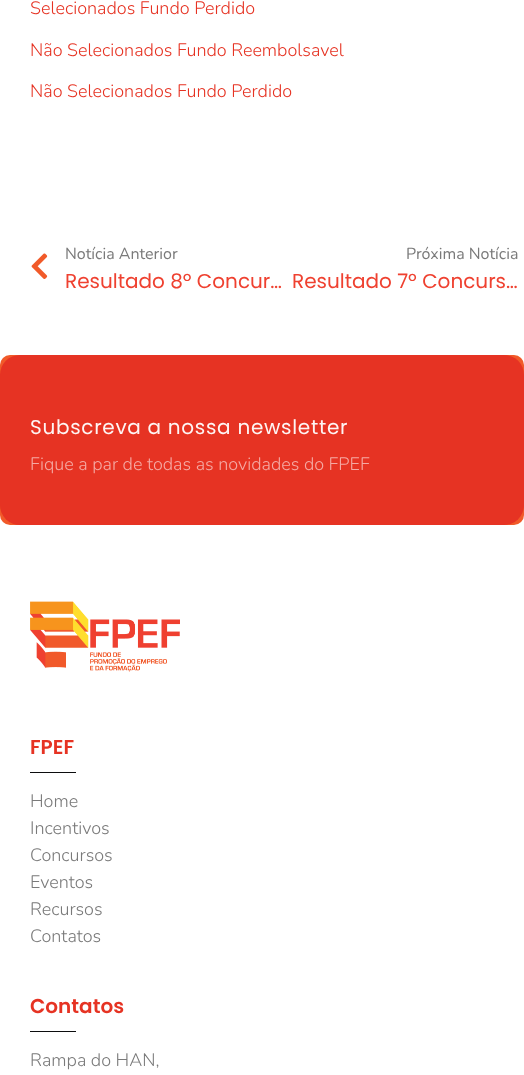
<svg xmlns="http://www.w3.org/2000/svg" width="524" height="1075">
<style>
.a{font:300 18px Nunito;fill:#e63323}
.b{font:16px Nunito;fill:#7a7a7a}
.c{font:20px Poppins;fill:#ef4130}
.d{font:20px Poppins;letter-spacing:0.7px;fill:#fef5f4}
.e{font:300 18px Nunito;fill:#f5a9a3}
.f{font:600 20px Poppins;fill:#e63323}
.g{font:300 18px Nunito;fill:#7a7a7a}
</style>
<rect width="100%" height="100%" fill="#fff"/>
<image href="1.png" x="31" y="253" width="17" height="26"/>
<rect fill="#f15a29" y="355" width="524" height="170" rx="10"/>
<rect fill="#e63323" y="355" width="524" height="170" rx="20"/>
<image href="2.png" x="30" y="601" width="150" height="71"/>
<path fill="#0c0d0e" d="M30 772h46v1H30z"/>
<path fill="#0c0d0e" d="M30 1031h46v1H30z"/>
<text class="a" x="30" y="14">Selecionados Fundo Perdido</text>
<text class="a" x="30" y="56">Não Selecionados Fundo Reembolsavel</text>
<text class="a" x="30" y="97">Não Selecionados Fundo Perdido</text>
<text class="b" x="65" y="259">Notícia Anterior</text>
<text class="c" x="65" y="288">Resultado 8º Concur…</text>
<text class="b" x="406" y="259">Próxima Notícia</text>
<text class="c" x="292" y="288">Resultado 7º Concurs…</text>
<text class="d" x="30" y="434">Subscreva a nossa newsletter</text>
<text class="e" x="30" y="470">Fique a par de todas as novidades do FPEF</text>
<text class="f" x="30" y="754">FPEF</text>
<text class="g" x="30" y="807">Home</text>
<text class="g" x="30" y="834">Incentivos</text>
<text class="g" x="30" y="861">Concursos</text>
<text class="g" x="30" y="888">Eventos</text>
<text class="g" x="30" y="915">Recursos</text>
<text class="g" x="30" y="942">Contatos</text>
<text class="f" x="30" y="1013">Contatos</text>
<text class="g" x="30" y="1066">Rampa do HAN,</text>
</svg>
